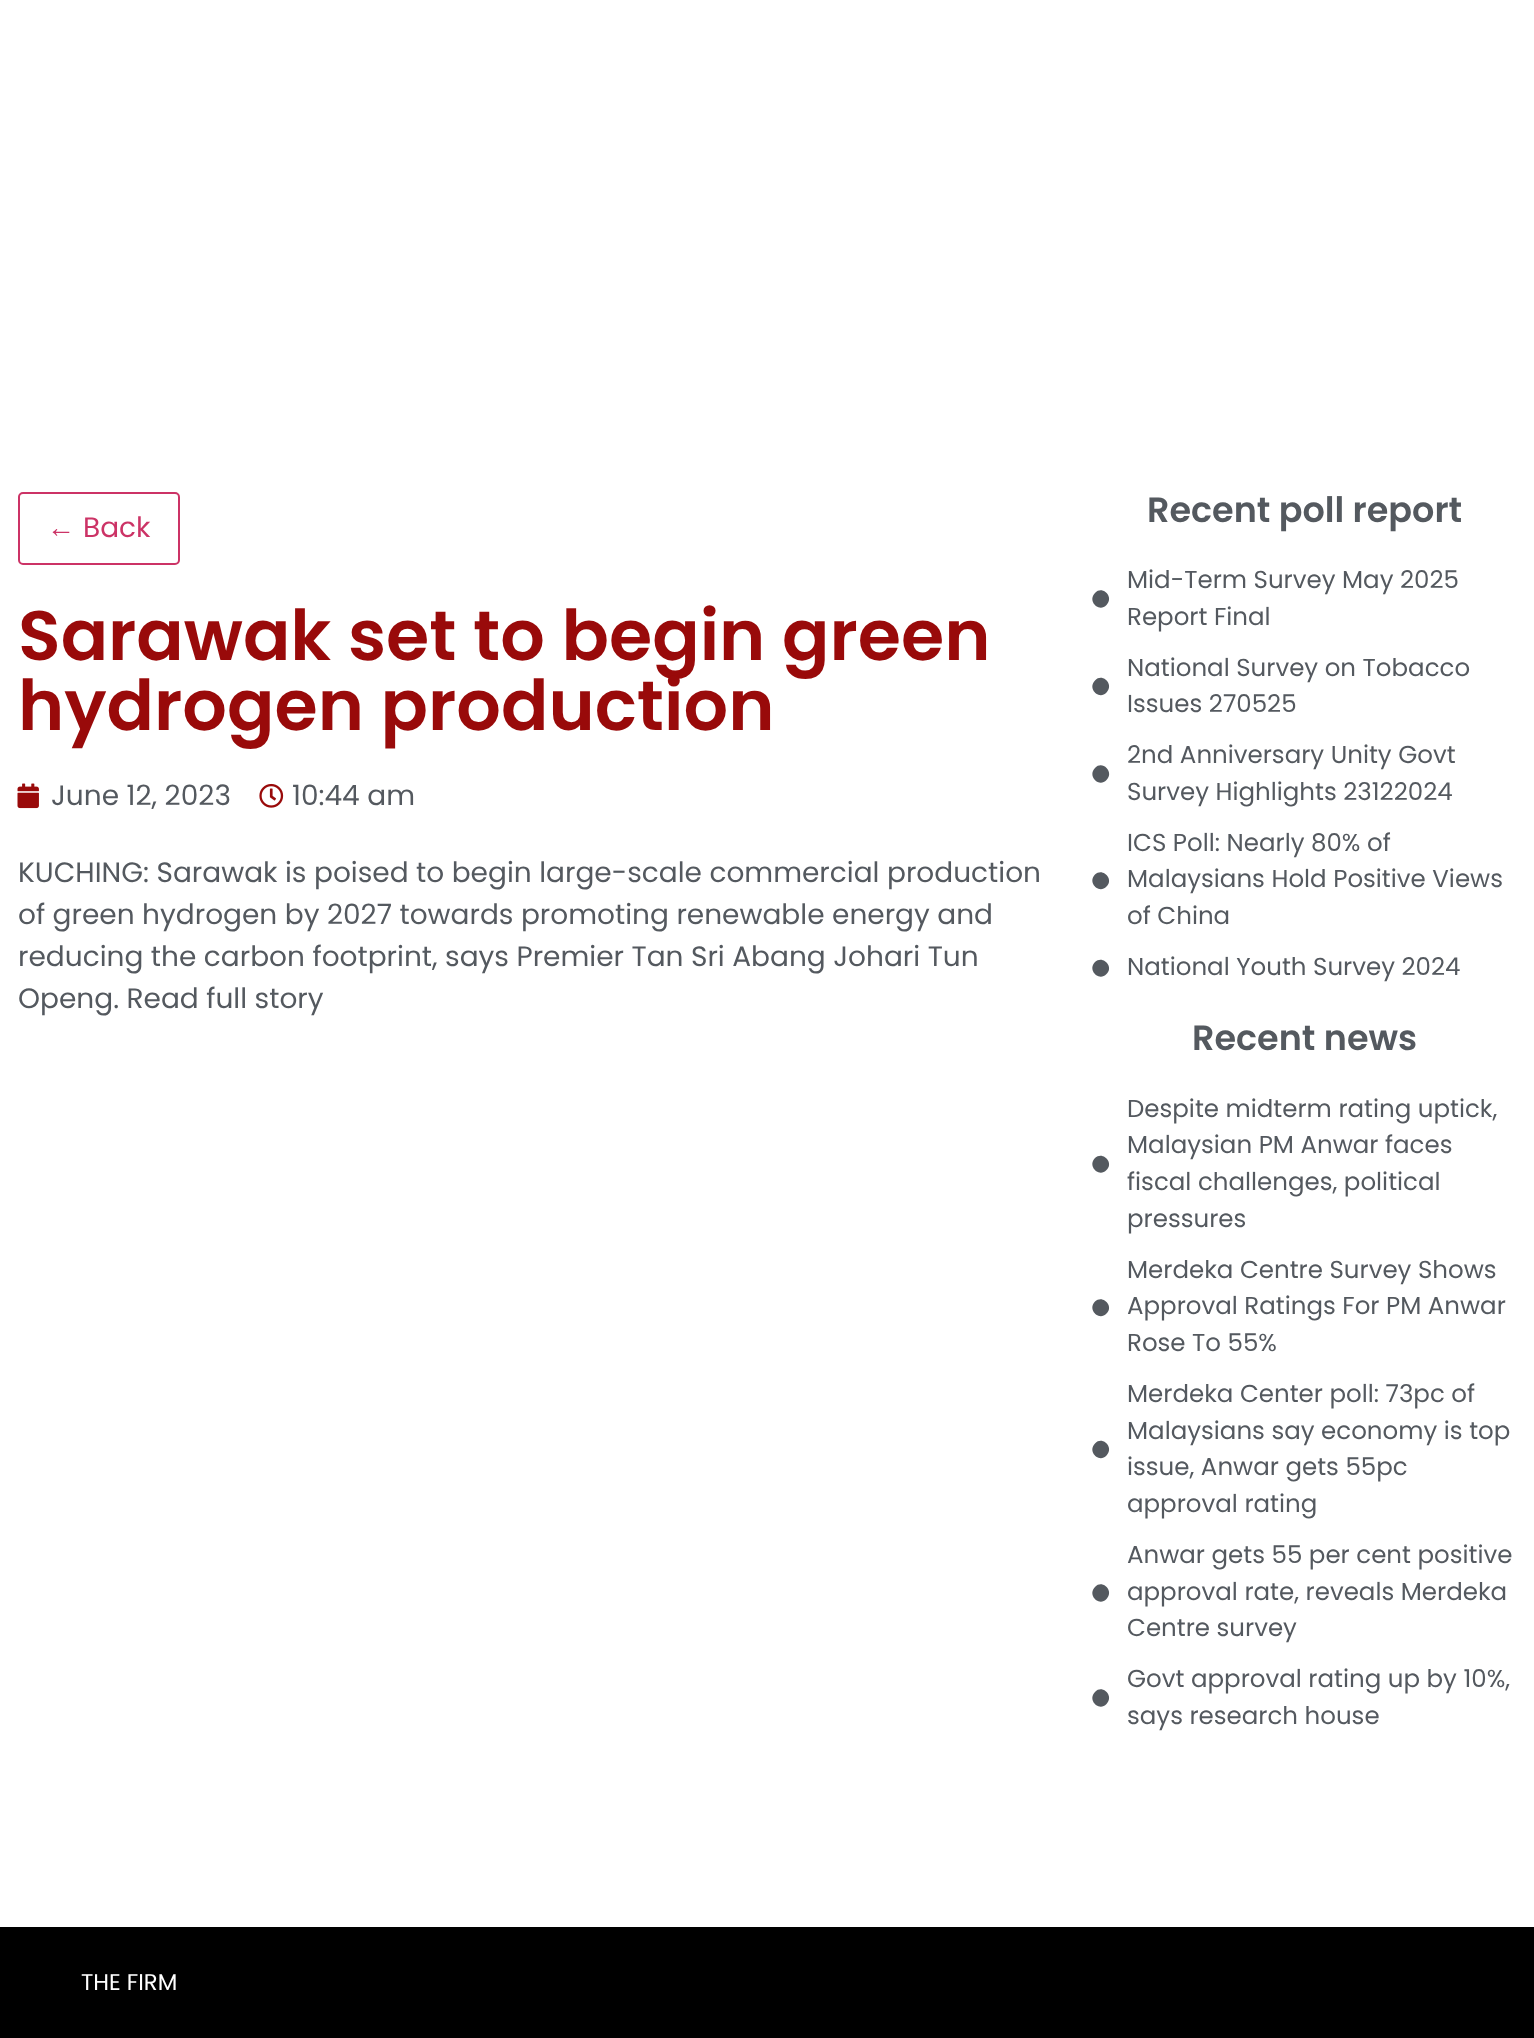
<svg xmlns="http://www.w3.org/2000/svg" width="1534" height="2038">
<style>
.a{font:28px Liberation Sans;fill:#c36}
.b{font:28px Poppins;fill:#c36}
.c{font:600 70px Poppins;fill:#990a0a}
.d{font:28px Poppins;fill:#54595f}
.e{font:600 35px Poppins;fill:#54595f}
.f{font:24.5px Poppins;fill:#54595f}
.g{font:22.75px Poppins;fill:#fff}
</style>
<rect width="100%" height="100%" fill="#fff"/>
<rect fill="none" stroke="#c36" stroke-width="2" x="19" y="493" width="160" height="71" rx="4"/>
<image href="1.png" x="17" y="783" width="22" height="26"/>
<image href="2.png" x="259" y="783" width="25" height="25"/>
<path fill="#54595f" d="M1095 593c7.5-8 19.5 4 11.5 12c-7.5 8-19.5-4-11.5-12z"/>
<path fill="#54595f" d="M1095 680.5c7.5-8 19.5 4 11.5 12c-7.5 8-19.5-4-11.5-12z"/>
<path fill="#54595f" d="M1095 768c7.5-8 19.5 4 11.5 12c-7.5 8-19.5-4-11.5-12z"/>
<path fill="#54595f" d="M1095 874.5c7.5-7.5 19.5 4.5 11.5 12c-7.5 8-19.5-4-11.5-12z"/>
<path fill="#54595f" d="M1095 962c7.5-7.5 19.5 4.5 11.5 12c-7.5 8-19.5-4-11.5-12z"/>
<path fill="#54595f" d="M1095 1158c7.5-7.5 19.5 4.5 11.5 12c-7.5 8-19.5-4-11.5-12z"/>
<path fill="#54595f" d="M1095 1301.5c7.5-7.5 19.5 4.5 11.5 12c-7.5 8-19.5-4-11.5-12z"/>
<path fill="#54595f" d="M1095 1443.5c7.5-8 19.5 4 11.5 12c-7.5 8-19.5-4-11.5-12z"/>
<path fill="#54595f" d="M1095 1587c7.5-8 19.5 4 11.5 12c-7.5 8-19.5-4-11.5-12z"/>
<path fill="#54595f" d="M1095 1692c7.5-8 19.5 4 11.5 12c-7.5 8-19.5-4-11.5-12z"/>
<path fill="#000" d="M0 1927h1534v111H0z"/>
<text class="a" x="47" y="537">←</text>
<text class="b" x="83" y="537">Back</text>
<text class="c" x="18" y="660">Sarawak set to begin green</text>
<text class="c" x="18" y="730">hydrogen production</text>
<text class="d" x="51" y="805">June 12, 2023</text>
<text class="d" x="292" y="805">10:44 am</text>
<text class="d" x="18" y="882">KUCHING: Sarawak is poised to begin large-scale commercial production</text>
<text class="d" x="18" y="924">of green hydrogen by 2027 towards promoting renewable energy and</text>
<text class="d" x="18" y="966">reducing the carbon footprint, says Premier Tan Sri Abang Johari Tun</text>
<text class="d" x="18" y="1008">Openg. Read full story</text>
<text class="e" x="1147" y="522">Recent poll report</text>
<text class="f" x="1127" y="588">Mid-Term Survey May 2025</text>
<text class="f" x="1127" y="625">Report Final</text>
<text class="f" x="1127" y="676">National Survey on Tobacco</text>
<text class="f" x="1127" y="712">Issues 270525</text>
<text class="f" x="1127" y="763">2nd Anniversary Unity Govt</text>
<text class="f" x="1127" y="800">Survey Highlights 23122024</text>
<text class="f" x="1127" y="851">ICS Poll: Nearly 80% of</text>
<text class="f" x="1127" y="887">Malaysians Hold Positive Views</text>
<text class="f" x="1127" y="924">of China</text>
<text class="f" x="1127" y="975">National Youth Survey 2024</text>
<text class="e" x="1192" y="1050">Recent news</text>
<text class="f" x="1127" y="1117">Despite midterm rating uptick,</text>
<text class="f" x="1127" y="1153">Malaysian PM Anwar faces</text>
<text class="f" x="1127" y="1190">fiscal challenges, political</text>
<text class="f" x="1127" y="1227">pressures</text>
<text class="f" x="1127" y="1278">Merdeka Centre Survey Shows</text>
<text class="f" x="1127" y="1314">Approval Ratings For PM Anwar</text>
<text class="f" x="1127" y="1351">Rose To 55%</text>
<text class="f" x="1127" y="1402">Merdeka Center poll: 73pc of</text>
<text class="f" x="1127" y="1439">Malaysians say economy is top</text>
<text class="f" x="1127" y="1475">issue, Anwar gets 55pc</text>
<text class="f" x="1127" y="1512">approval rating</text>
<text class="f" x="1127" y="1563">Anwar gets 55 per cent positive</text>
<text class="f" x="1127" y="1600">approval rate, reveals Merdeka</text>
<text class="f" x="1127" y="1636">Centre survey</text>
<text class="f" x="1127" y="1687">Govt approval rating up by 10%,</text>
<text class="f" x="1127" y="1724">says research house</text>
<text class="g" x="81" y="1990">THE FIRM</text>
</svg>
